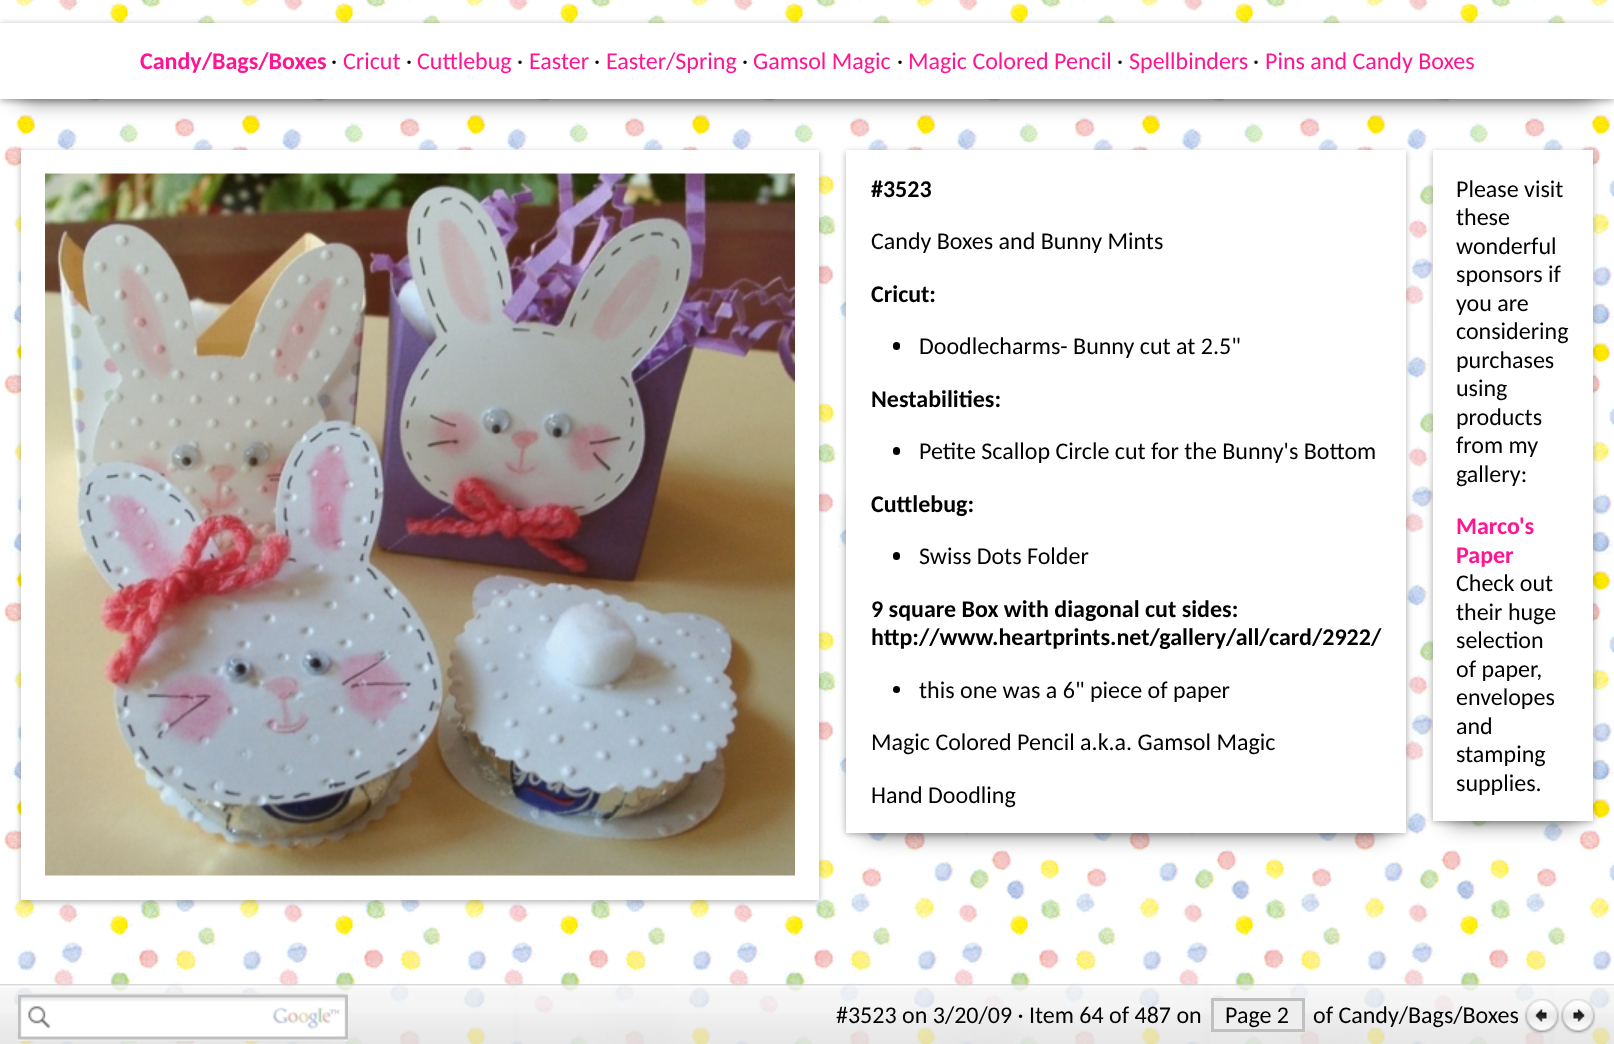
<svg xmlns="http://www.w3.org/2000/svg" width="1614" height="1044">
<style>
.a{font:bold 24px Carlito;fill:#ff1493}
.b{font:24px Carlito;fill:#000}
.c{font:24px Carlito;fill:#ff1493}
.d{font:bold 24px Carlito;fill:#000}
</style>
<rect width="100%" height="100%" fill="#fff"/>
<image href="1.png" x="3" y="0" width="1611" height="1044"/>
<path fill="#0000004d" filter="blur(3px)" d="M0 24h1614v77H0z"/>
<rect fill="#00000099" filter="blur(11px)" x="15" y="62" width="1584" height="37" rx="15"/>
<path fill="#fff" d="M0 23h1614v76H0z"/>
<path fill="#0000004d" filter="blur(3px)" d="M21 152h798v750H21z"/>
<path fill="#fff" d="M21 150h798v750H21z"/>
<image href="2.png" x="45" y="173" width="750" height="703"/>
<path fill="#0000004d" filter="blur(3px)" d="M846 152h560v682H846z"/>
<rect fill="#00000099" filter="blur(11px)" x="861" y="492" width="530" height="341" rx="15"/>
<path fill="#fff" d="M846 150h560v683H846z"/>
<rect fill="#000" x="893" y="342" width="7" height="8" rx="3.5"/>
<rect fill="#000" x="893" y="447" width="7" height="8" rx="3.5"/>
<rect fill="#000" x="893" y="552" width="7" height="8" rx="3.5"/>
<circle fill="#000" cx="896.5" cy="689.5" r="3.5"/>
<path fill="#0000004d" filter="blur(3px)" d="M1433 152h160v670H1433z"/>
<rect fill="#00000099" filter="blur(11px)" x="1448" y="486" width="130" height="335" rx="6"/>
<path fill="#fff" d="M1433 150h160v671H1433z"/>
<image href="3.png" x="0" y="984" width="1614" height="60"/>
<path fill="#fff" d="M18 993h330v48H18z"/>
<image href="4.png" x="18" y="993" width="330" height="48"/>
<path fill="#eee" stroke="#c0c0c0" stroke-width="3" d="M1212.5 999.5h91v31H1212.5z"/>
<image href="5.png" x="1524" y="998" width="36" height="36"/>
<image href="6.png" x="1560" y="998" width="36" height="36"/>
<text class="a" x="140" y="69">Candy/Bags/Boxes</text>
<text class="b" x="331" y="69">·</text>
<text class="c" x="343" y="69">Cricut</text>
<text class="b" x="406" y="69">·</text>
<text class="c" x="417" y="69">Cuttlebug</text>
<text class="b" x="517" y="69">·</text>
<text class="c" x="529" y="69">Easter</text>
<text class="b" x="594" y="69">·</text>
<text class="c" x="606" y="69">Easter/Spring</text>
<text class="b" x="742" y="69">·</text>
<text class="c" x="753" y="69">Gamsol Magic</text>
<text class="b" x="897" y="69">·</text>
<text class="c" x="908" y="69">Magic Colored Pencil</text>
<text class="b" x="1117" y="69">·</text>
<text class="c" x="1129" y="69">Spellbinders</text>
<text class="b" x="1253" y="69">·</text>
<text class="c" x="1265" y="69">Pins and Candy Boxes</text>
<text class="d" x="871" y="197">#3523</text>
<text class="b" x="871" y="249">Candy Boxes and Bunny Mints</text>
<text class="d" x="871" y="302">Cricut:</text>
<text class="b" x="919" y="354">Doodlecharms- Bunny cut at 2.5"</text>
<text class="d" x="871" y="407">Nestabilities:</text>
<text class="b" x="919" y="459">Petite Scallop Circle cut for the Bunny's Bottom</text>
<text class="d" x="871" y="512">Cuttlebug:</text>
<text class="b" x="919" y="564">Swiss Dots Folder</text>
<text class="d" x="871" y="617">9 square Box with diagonal cut sides:</text>
<text class="d" x="871" y="645">http://www.heartprints.net/gallery/all/card/2922/</text>
<text class="b" x="919" y="698">this one was a 6" piece of paper</text>
<text class="b" x="871" y="750">Magic Colored Pencil a.k.a. Gamsol Magic</text>
<text class="b" x="871" y="803">Hand Doodling</text>
<text class="b" x="1456" y="197">Please visit</text>
<text class="b" x="1456" y="225">these</text>
<text class="b" x="1456" y="254">wonderful</text>
<text class="b" x="1456" y="282">sponsors if</text>
<text class="b" x="1456" y="311">you are</text>
<text class="b" x="1456" y="339">considering</text>
<text class="b" x="1456" y="368">purchases</text>
<text class="b" x="1456" y="396">using</text>
<text class="b" x="1456" y="425">products</text>
<text class="b" x="1456" y="453">from my</text>
<text class="b" x="1456" y="482">gallery:</text>
<text class="a" x="1456" y="534">Marco's</text>
<text class="a" x="1456" y="563">Paper</text>
<text class="b" x="1456" y="591">Check out</text>
<text class="b" x="1456" y="620">their huge</text>
<text class="b" x="1456" y="648">selection</text>
<text class="b" x="1456" y="677">of paper,</text>
<text class="b" x="1456" y="705">envelopes</text>
<text class="b" x="1456" y="734">and</text>
<text class="b" x="1456" y="762">stamping</text>
<text class="b" x="1456" y="791">supplies.</text>
<text class="b" x="836" y="1023">#3523 on 3/20/09 · Item 64 of 487 on</text>
<text class="b" x="1225" y="1023">Page 2</text>
<text class="b" x="1313" y="1023">of Candy/Bags/Boxes</text>
</svg>
